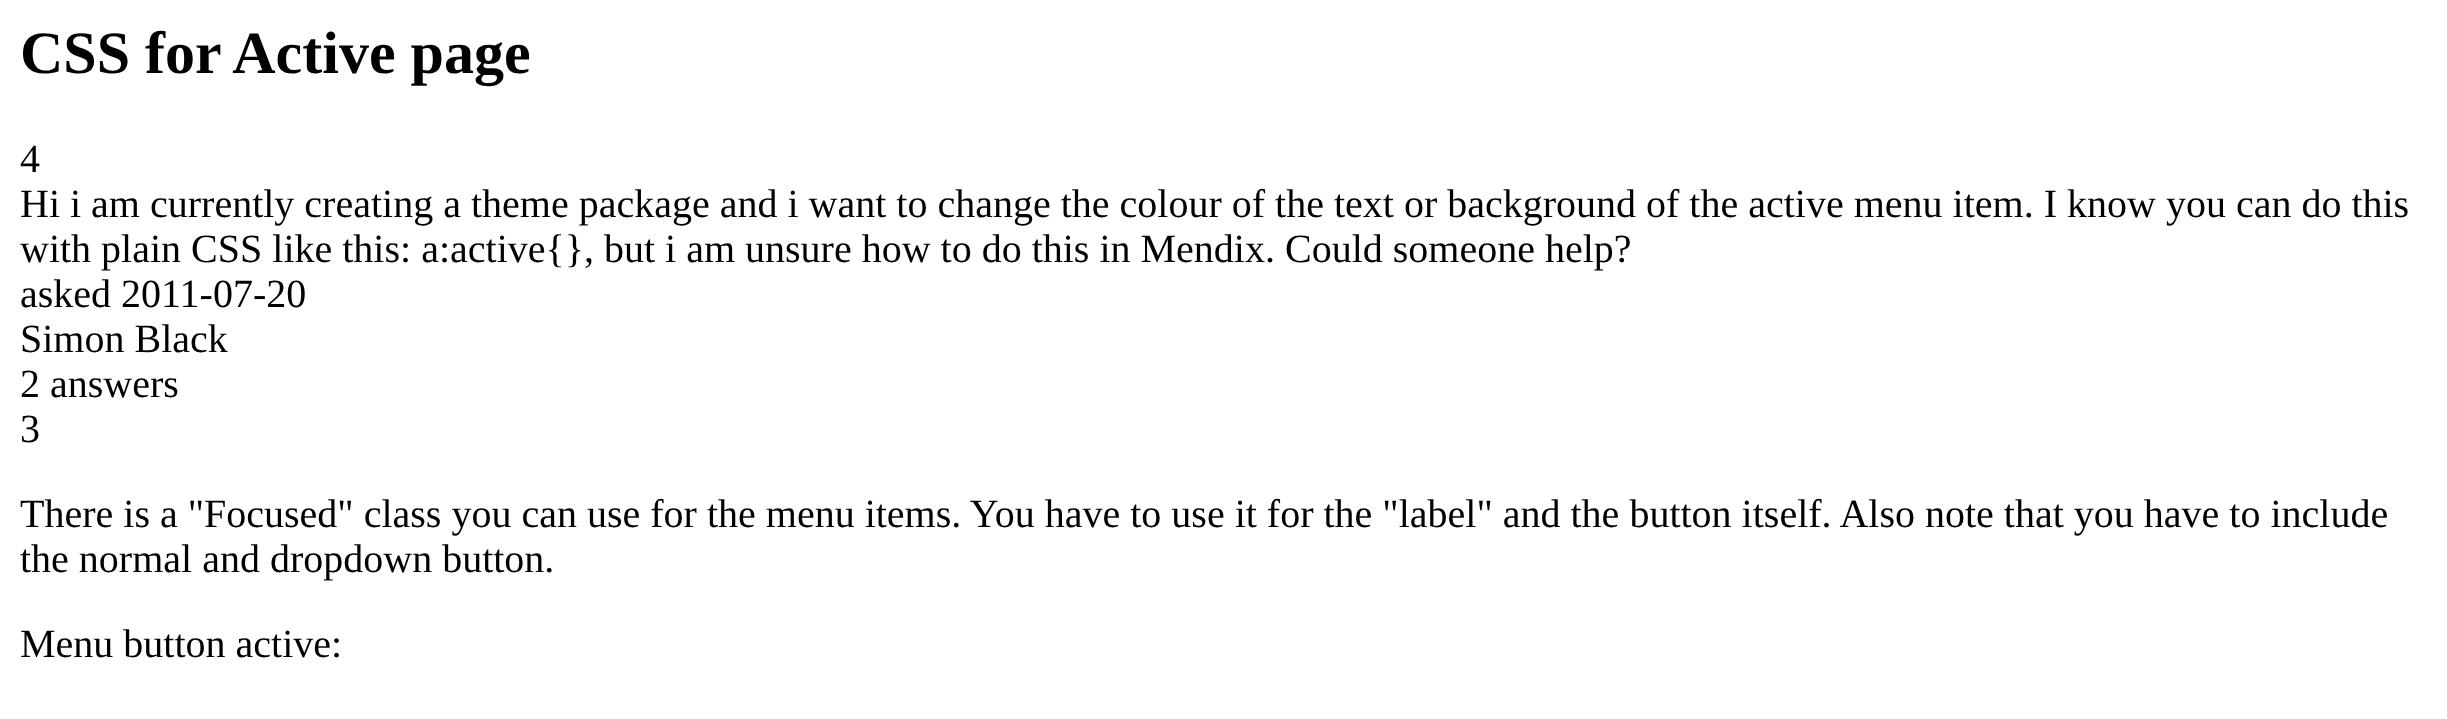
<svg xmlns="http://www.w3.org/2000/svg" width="2447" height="719">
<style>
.a{font:bold 60px Liberation Serif;fill:#000}
.b{font:40px Liberation Serif;fill:#000}
</style>
<rect width="100%" height="100%" fill="#fff"/>
<text class="a" x="20" y="73">CSS for Active page</text>
<text class="b" x="20" y="172">4</text>
<text class="b" x="20" y="217">Hi i am currently creating a theme package and i want to change the colour of the text or background of the active menu item. I know you can do this</text>
<text class="b" x="20" y="262">with plain CSS like this: a:active{}, but i am unsure how to do this in Mendix. Could someone help?</text>
<text class="b" x="20" y="307">asked 2011-07-20</text>
<text class="b" x="20" y="352">Simon Black</text>
<text class="b" x="20" y="397">2 answers</text>
<text class="b" x="20" y="442">3</text>
<text class="b" x="20" y="527">There is a "Focused" class you can use for the menu items. You have to use it for the "label" and the button itself. Also note that you have to include</text>
<text class="b" x="20" y="572">the normal and dropdown button.</text>
<text class="b" x="20" y="657">Menu button active:</text>
</svg>
